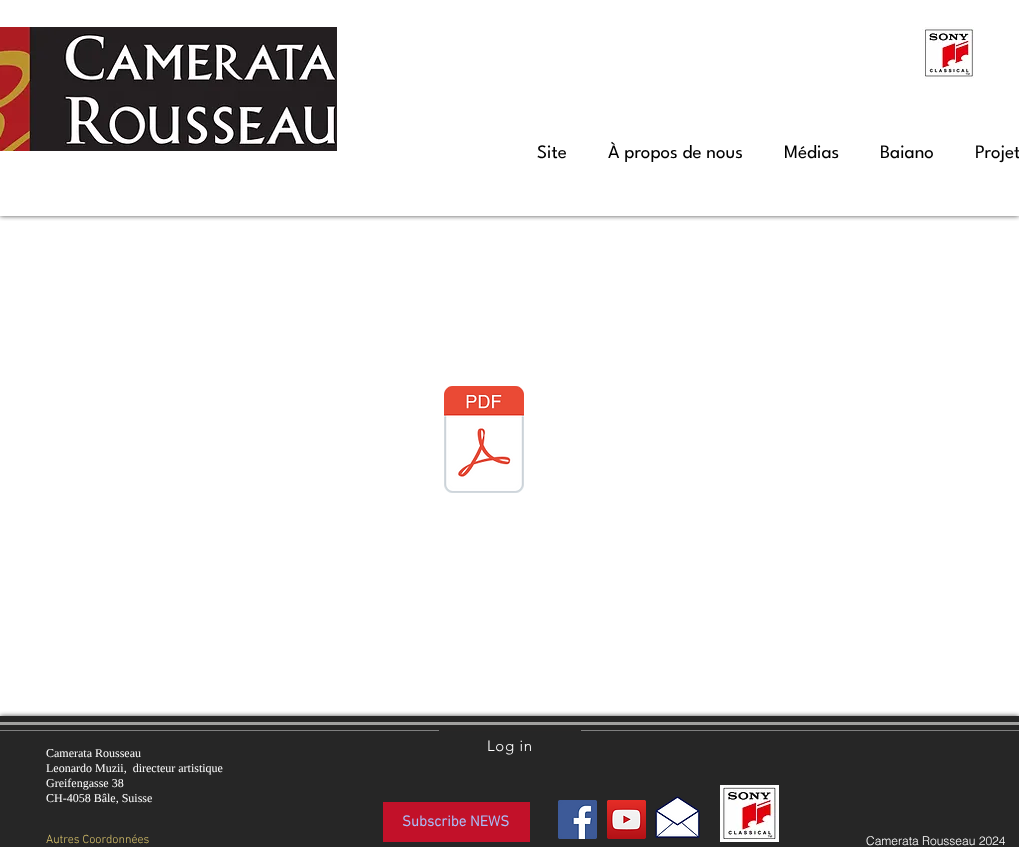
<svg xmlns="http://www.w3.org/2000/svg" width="1019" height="847">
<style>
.a{font:19px League Spartan;fill:#000}
.b{font:300 15px 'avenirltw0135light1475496';letter-spacing:0.75px;fill:#fff}
.c{font:12px Liberation Serif;fill:#fff}
.d{font:bold 15px 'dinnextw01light';fill:#aabdf6}
.e{font:300 12px 'dinnextw01light';fill:#dec76d}
.f{font:300 12px helvetica;fill:#fff}
</style>
<defs>
<clipPath id="clip1"><path d="M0 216h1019v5H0z"/></clipPath>
</defs>
<rect width="100%" height="100%" fill="#fff"/>
<g clip-path="url(#clip1)">
<path fill="#000000b3" filter="blur(2.5px)" d="M0 -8h1019v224H0z"/>
</g>
<image href="1.png" x="0" y="27" width="337" height="124"/>
<image href="2.png" x="922" y="27" width="52" height="52"/>
<image href="3.png" x="444" y="386" width="80" height="107"/>
<path fill="#000000b3" filter="blur(2.5px)" d="M0 716h1019v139H0z"/>
<path fill="#262626" d="M0 716h1019v131H0z"/>
<path fill="#a0a09f" d="M0 722h1019v3H0z"/>
<path fill="#808080" d="M0 730h1019v1H0z"/>
<path fill="#282626" d="M439 730h142v1H439z"/>
<path fill="#c21129" d="M383 802h147v40H383z"/>
<image href="4.png" x="558" y="800" width="39" height="39"/>
<image href="5.png" x="607" y="800" width="39" height="39"/>
<image href="6.png" x="655" y="796" width="45" height="42"/>
<image href="7.png" x="720" y="785" width="59" height="57"/>
<text class="a" x="537" y="158">Site</text>
<text class="a" x="608" y="158">À propos de nous</text>
<text class="a" x="784" y="158">Médias</text>
<text class="a" x="880" y="158">Baiano</text>
<text class="a" x="975" y="158">Projet</text>
<text class="b" x="487" y="751">Log in</text>
<text class="c" x="46" y="757">Camerata Rousseau</text>
<text class="c" xml:space="preserve" x="46" y="772">Leonardo Muzii,  directeur artistique</text>
<text class="c" x="46" y="787">Greifengasse 38</text>
<text class="c" x="46" y="802">CH-4058 Bâle, Suisse</text>
<text class="d" x="402" y="826">Subscribe NEWS</text>
<text class="e" x="46" y="843">Autres Coordonnées</text>
<text class="f" x="866" y="845">Camerata Rousseau 2024</text>
</svg>
